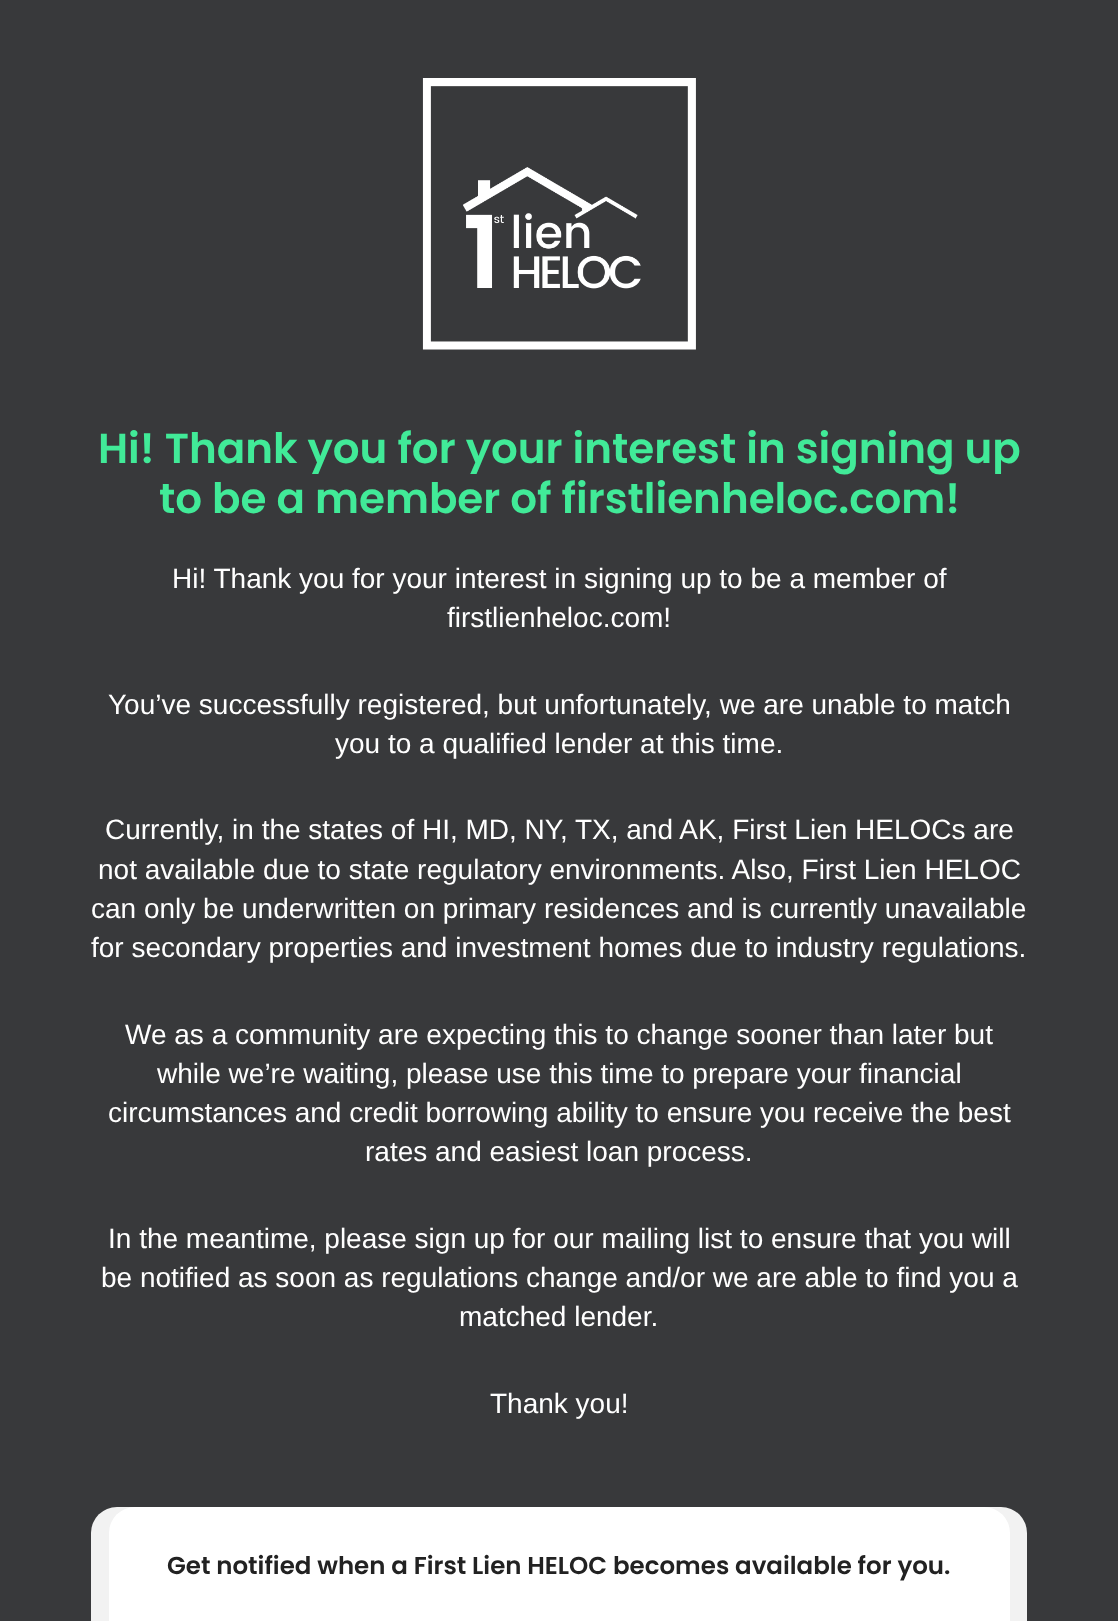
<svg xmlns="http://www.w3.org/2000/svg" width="1118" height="1621">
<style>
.a{font:600 42px Poppins;fill:#41ea98}
.b{font:28px Liberation Sans;fill:#fff}
.c{font:600 24.5px Poppins;fill:#222}
</style>
<rect width="100%" height="100%" fill="#38393b"/>
<image href="1.png" x="422" y="78" width="274" height="272"/>
<rect fill="#f2f2f2" x="91" y="1507" width="936" height="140" rx="26"/>
<rect fill="#fff" x="109" y="1507" width="901" height="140" rx="26"/>
<text class="a" x="98" y="463">Hi! Thank you for your interest in signing up</text>
<text class="a" x="159" y="513">to be a member of firstlienheloc.com!</text>
<text class="b" x="172" y="588">Hi! Thank you for your interest in signing up to be a member of</text>
<text class="b" x="447" y="627">firstlienheloc.com!</text>
<text class="b" x="108" y="714">You’ve successfully registered, but unfortunately, we are unable to match</text>
<text class="b" x="335" y="753">you to a qualified lender at this time.</text>
<text class="b" x="105" y="839">Currently, in the states of HI, MD, NY, TX, and AK, First Lien HELOCs are</text>
<text class="b" x="98" y="879">not available due to state regulatory environments. Also, First Lien HELOC</text>
<text class="b" x="91" y="918">can only be underwritten on primary residences and is currently unavailable</text>
<text class="b" x="91" y="957">for secondary properties and investment homes due to industry regulations.</text>
<text class="b" x="125" y="1044">We as a community are expecting this to change sooner than later but</text>
<text class="b" x="157" y="1083">while we’re waiting, please use this time to prepare your financial</text>
<text class="b" x="108" y="1122">circumstances and credit borrowing ability to ensure you receive the best</text>
<text class="b" x="365" y="1161">rates and easiest loan process.</text>
<text class="b" x="108" y="1248">In the meantime, please sign up for our mailing list to ensure that you will</text>
<text class="b" x="101" y="1287">be notified as soon as regulations change and/or we are able to find you a</text>
<text class="b" x="459" y="1326">matched lender.</text>
<text class="b" x="490" y="1413">Thank you!</text>
<text class="c" x="167" y="1574">Get notified when a First Lien HELOC becomes available for you.</text>
</svg>
